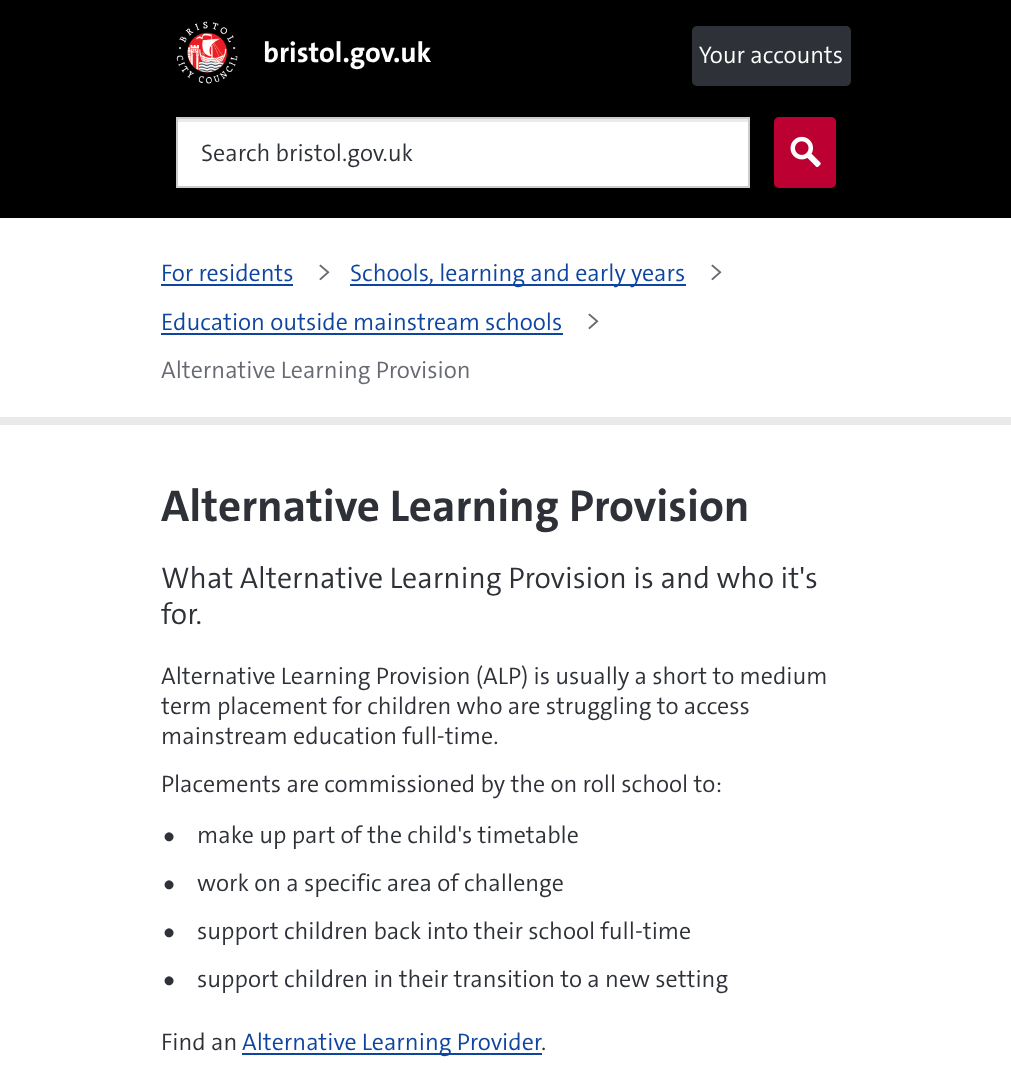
<svg xmlns="http://www.w3.org/2000/svg" width="1011" height="1089">
<style>
.a{font:bold 28.5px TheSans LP;fill:#fff}
.b{font:300 24px TheSans LP;fill:#fff}
.c{font:300 24px TheSans LP;fill:#2e3137}
.d{font:300 24px TheSans LP;fill:#0d45a0}
.e{font:300 28.5px TheSans LP;fill:#676973}
.f{font:300 24px TheSans LP;fill:#676973}
.g{font:bold 45px TheSans LP;fill:#2e3137}
.h{font:300 30px TheSans LP;fill:#2e3137}
.i{font:bold 36px 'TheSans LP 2';fill:#2e3137}
</style>
<rect width="100%" height="100%" fill="#fff"/>
<path fill="#000" d="M0 0h1011v218H0z"/>
<image href="1.png" x="176" y="21" width="62" height="63"/>
<rect fill="#2e3137" x="692" y="26" width="159" height="60" rx="5"/>
<path fill="#fff" d="M178 122h570v64H178z"/>
<path fill="#eaeaea" d="M177 119h572v3H177z"/>
<path fill="none" stroke="#ccc" stroke-width="2" d="M177 118h572v69H177z"/>
<rect fill="#bc0031" x="774" y="117" width="62" height="71" rx="5"/>
<image href="2.png" x="790" y="136" width="31" height="32"/>
<path fill="#eaeaea" d="M0 417h1011v8H0z"/>
<path fill="#0d45a0" d="M161 284h132v2H161z"/>
<path fill="#0d45a0" d="M350 284h336v2H350z"/>
<path fill="#0d45a0" d="M161 333h402v2H161z"/>
<path fill="#0d45a0" d="M242 1053h300v2H242z"/>
<text class="a" x="263" y="62">bristol.gov.uk</text>
<text class="b" x="699" y="63">Your accounts</text>
<text class="c" x="201" y="161">Search bristol.gov.uk</text>
<text class="d" x="161" y="281">For residents</text>
<text class="e" x="316" y="281">&gt;</text>
<text class="d" x="350" y="281">Schools, learning and early years</text>
<text class="e" x="708" y="281">&gt;</text>
<text class="d" x="161" y="330">Education outside mainstream schools</text>
<text class="e" x="585" y="330">&gt;</text>
<text class="f" x="161" y="378">Alternative Learning Provision</text>
<text class="g" x="161" y="521">Alternative Learning Provision</text>
<text class="h" x="161" y="588">What Alternative Learning Provision is and who it's</text>
<text class="h" x="161" y="624">for.</text>
<text class="c" x="161" y="684">Alternative Learning Provision (ALP) is usually a short to medium</text>
<text class="c" x="161" y="714">term placement for children who are struggling to access</text>
<text class="c" x="161" y="744">mainstream education full-time.</text>
<text class="c" x="161" y="792">Placements are commissioned by the on roll school to:</text>
<text class="i" x="161" y="848">•</text>
<text class="c" x="197" y="843">make up part of the child's timetable</text>
<text class="i" x="161" y="896">•</text>
<text class="c" x="197" y="891">work on a specific area of challenge</text>
<text class="i" x="161" y="944">•</text>
<text class="c" x="197" y="939">support children back into their school full-time</text>
<text class="i" x="161" y="992">•</text>
<text class="c" x="197" y="987">support children in their transition to a new setting</text>
<text class="c" x="161" y="1050">Find an</text>
<text class="d" x="242" y="1050">Alternative Learning Provider</text>
<text class="c" x="541" y="1050">.</text>
</svg>
